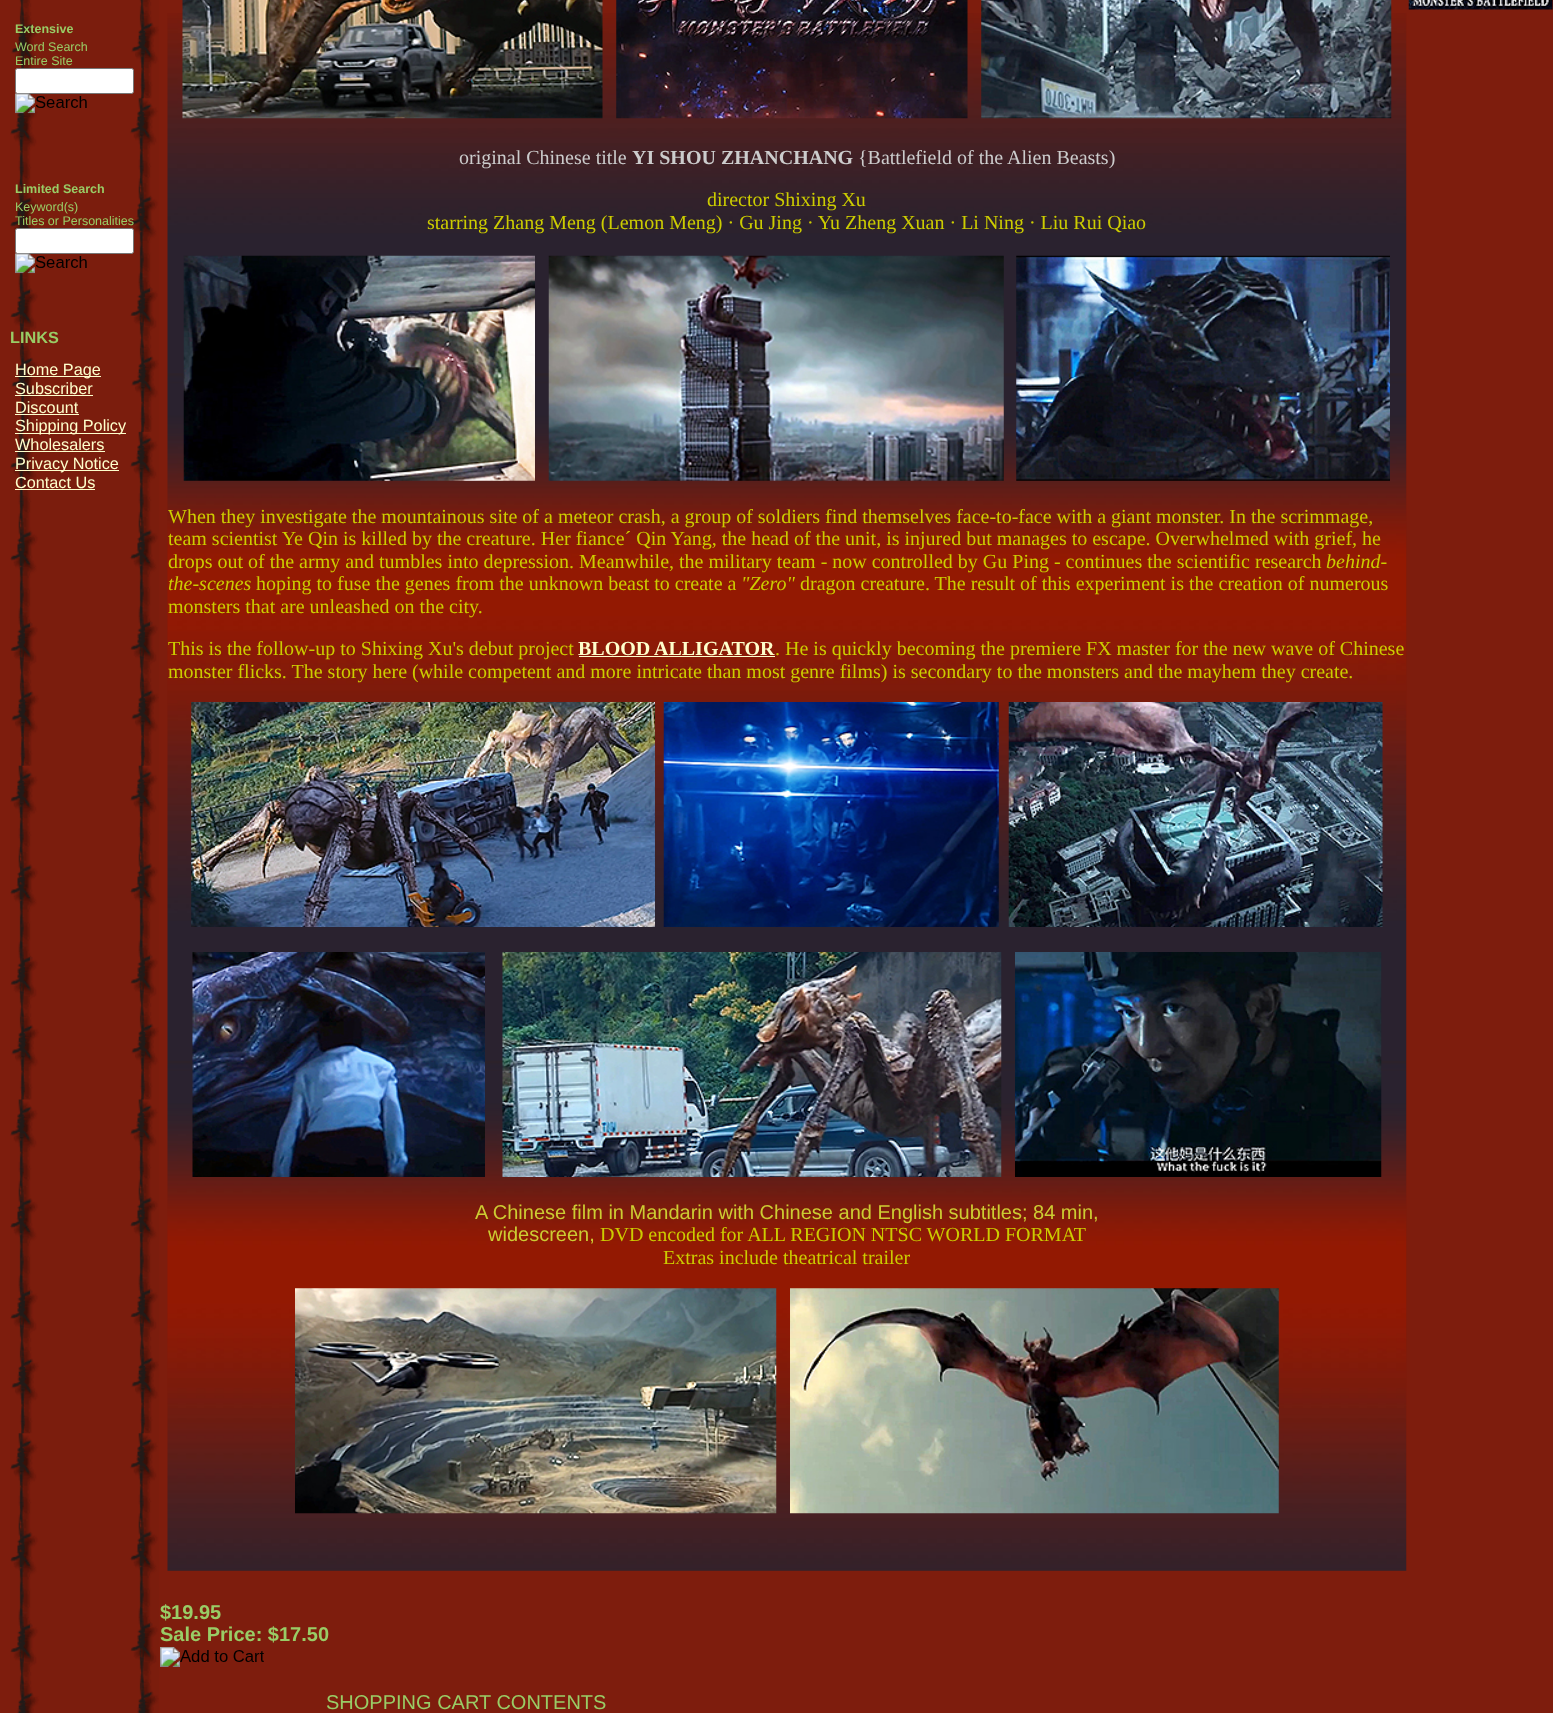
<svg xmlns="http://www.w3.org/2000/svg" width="1553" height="1713">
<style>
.a{font:bold 12.5px Liberation Sans;fill:#9c6}
.b{font:12.5px Liberation Sans;fill:#9c6}
.c{font:bold 16.25px Liberation Sans;fill:#9c6}
.d{font:16.25px Liberation Sans;fill:#ffc}
.e{font:20px Liberation Serif;fill:#ccc}
.f{font:bold 20px Liberation Serif;fill:#ccc}
.g{font:20px Liberation Serif;fill:#cc0}
.h{font:italic 20px Liberation Serif;fill:#cc0}
.i{font:bold 20px Liberation Serif;fill:#ffc}
.j{font:20px Liberation Sans;fill:#cc3}
.k{font:bold 20px Liberation Sans;fill:#9c6}
.l{font:20px Liberation Sans;fill:#9c6}
</style>
<rect width="100%" height="100%" fill="#7e1d0d"/>
<image href="1.png" x="10" y="0" width="149" height="1713"/>
<rect fill="#fff" stroke="#767676" x="15.5" y="68.5" width="118" height="25" rx="2"/>
<image href="2.png" x="15" y="93" width="72" height="21"/>
<rect fill="#fff" stroke="#767676" x="15.5" y="228.5" width="118" height="25" rx="2"/>
<image href="3.png" x="15" y="253" width="72" height="21"/>
<path fill="#ffc" d="M15 376h86v1H15z"/>
<path fill="#ffc" d="M15 395h78v1H15z"/>
<path fill="#ffc" d="M15 414h64v1H15z"/>
<path fill="#ffc" d="M15 433h111v1H15z"/>
<path fill="#ffc" d="M15 451h90v1H15z"/>
<path fill="#ffc" d="M15 470h104v1H15z"/>
<path fill="#ffc" d="M15 489h80v1H15z"/>
<image href="4.png" x="1408" y="0" width="145" height="10"/>
<image href="5.png" x="167" y="13" width="1240" height="1558"/>
<image href="6.png" x="182" y="0" width="421" height="119"/>
<image href="7.png" x="616" y="0" width="352" height="119"/>
<image href="8.png" x="981" y="0" width="411" height="119"/>
<image href="9.png" x="183" y="255" width="352" height="226"/>
<image href="10.png" x="548" y="255" width="456" height="226"/>
<image href="11.png" x="1016" y="255" width="374" height="226"/>
<path fill="#ffc" d="M579 656h196v1H579z"/>
<image href="12.png" x="191" y="702" width="464" height="225"/>
<image href="13.png" x="663" y="702" width="336" height="225"/>
<image href="14.png" x="1008" y="702" width="375" height="225"/>
<image href="15.png" x="192" y="952" width="293" height="225"/>
<image href="16.png" x="502" y="952" width="500" height="225"/>
<image href="17.png" x="1015" y="952" width="367" height="225"/>
<image href="18.png" x="295" y="1288" width="482" height="226"/>
<image href="19.png" x="790" y="1288" width="489" height="226"/>
<image href="20.png" x="160" y="1647" width="104" height="20"/>
<text class="a" x="15" y="33">Extensive</text>
<text class="b" x="15" y="51">Word Search</text>
<text class="b" x="15" y="65">Entire Site</text>
<text class="a" x="15" y="193">Limited Search</text>
<text class="b" x="15" y="211">Keyword(s)</text>
<text class="b" x="15" y="225">Titles or Personalities</text>
<text class="c" x="10" y="343">LINKS</text>
<text class="d" x="15" y="375">Home Page</text>
<text class="d" x="15" y="394">Subscriber</text>
<text class="d" x="15" y="413">Discount</text>
<text class="d" x="15" y="431">Shipping Policy</text>
<text class="d" x="15" y="450">Wholesalers</text>
<text class="d" x="15" y="469">Privacy Notice</text>
<text class="d" x="15" y="488">Contact Us</text>
<text class="e" x="459" y="164">original Chinese title</text>
<text class="f" x="632" y="164">YI SHOU ZHANCHANG</text>
<text class="e" x="858" y="164">{Battlefield of the Alien Beasts)</text>
<text class="g" x="707" y="206">director Shixing Xu</text>
<text class="g" x="427" y="229">starring Zhang Meng (Lemon Meng) · Gu Jing · Yu Zheng Xuan · Li Ning · Liu Rui Qiao</text>
<text class="g" x="168" y="523">When they investigate the mountainous site of a meteor crash, a group of soldiers find themselves face-to-face with a giant monster. In the scrimmage,</text>
<text class="g" x="168" y="545">team scientist Ye Qin is killed by the creature. Her fiance´ Qin Yang, the head of the unit, is injured but manages to escape. Overwhelmed with grief, he</text>
<text class="g" x="168" y="568">drops out of the army and tumbles into depression. Meanwhile, the military team - now controlled by Gu Ping - continues the scientific research</text>
<text class="h" x="1326" y="568">behind-</text>
<text class="h" x="168" y="590">the-scenes</text>
<text class="g" x="256" y="590">hoping to fuse the genes from the unknown beast to create a</text>
<text class="h" x="741" y="590">"Zero"</text>
<text class="g" x="800" y="590">dragon creature. The result of this experiment is the creation of numerous</text>
<text class="g" x="168" y="613">monsters that are unleashed on the city.</text>
<text class="g" x="168" y="655">This is the follow-up to Shixing Xu's debut project</text>
<text class="i" x="578" y="655">BLOOD</text>
<text class="i" x="654" y="655">ALLIGATOR</text>
<text class="g" x="775" y="655">. He is quickly becoming the premiere FX master for the new wave of Chinese</text>
<text class="g" x="168" y="678">monster flicks. The story here (while competent and more intricate than most genre films) is secondary to the monsters and the mayhem they create.</text>
<text class="j" x="475" y="1219">A Chinese film in Mandarin with Chinese and English subtitles; 84 min,</text>
<text class="j" x="488" y="1241">widescreen,</text>
<text class="g" x="600" y="1241">DVD encoded for ALL REGION NTSC WORLD FORMAT</text>
<text class="g" x="663" y="1264">Extras include theatrical trailer</text>
<text class="k" x="160" y="1619">$19.95</text>
<text class="k" x="160" y="1641">Sale Price: $17.50</text>
<text class="l" x="326" y="1709">SHOPPING CART CONTENTS</text>
</svg>
